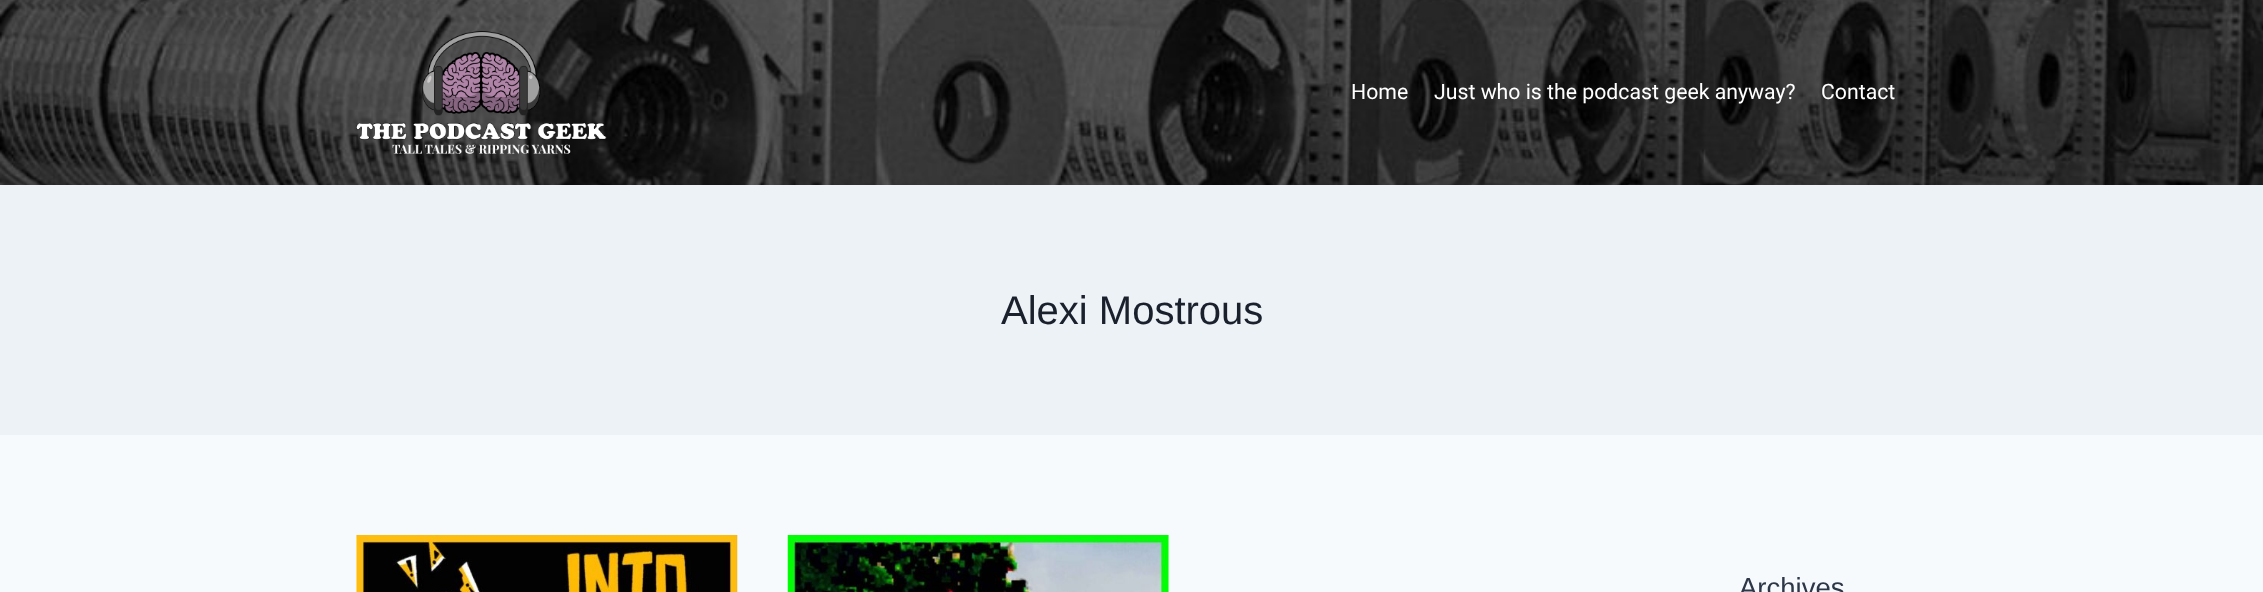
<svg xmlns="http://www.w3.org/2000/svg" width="2263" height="592">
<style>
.a{font:21.25px Roboto;fill:#fff}
.b{font:40px Liberation Sans;fill:#1a202c}
.c{font:27.5px Liberation Sans;fill:#2d3748}
</style>
<rect width="100%" height="100%" fill="#f7fafc"/>
<image href="1.png" x="0" y="0" width="2263" height="185"/>
<image href="2.png" x="356" y="31" width="251" height="123"/>
<path fill="#edf2f7" d="M0 185h2263v250H0z"/>
<rect fill="#fff" x="356" y="535" width="382" height="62" rx="5"/>
<image href="3.png" x="356" y="535" width="382" height="57"/>
<rect fill="#fff" x="788" y="535" width="381" height="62" rx="5"/>
<image href="4.png" x="787" y="535" width="382" height="57"/>
<text class="a" x="1351" y="99">Home</text>
<text class="a" x="1434" y="99">Just who is the podcast geek anyway?</text>
<text class="a" x="1821" y="99">Contact</text>
<text class="b" x="1001" y="324">Alexi Mostrous</text>
<text class="c" x="1739" y="597">Archives</text>
</svg>
